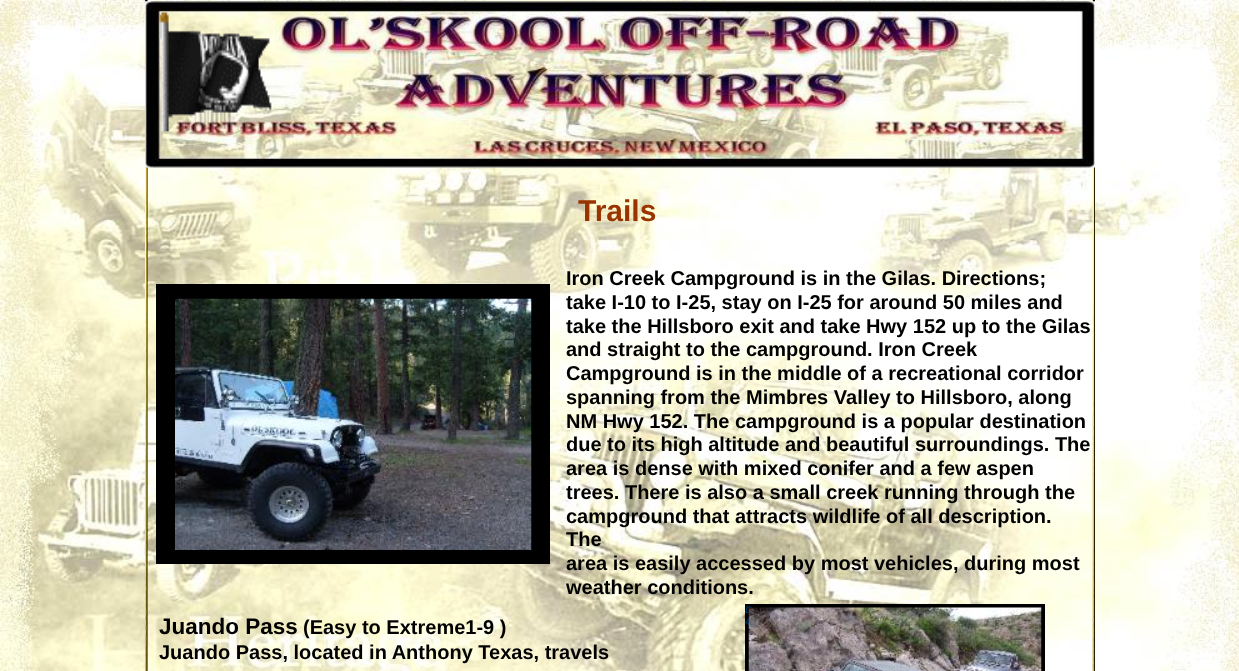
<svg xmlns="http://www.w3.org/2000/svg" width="1239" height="671">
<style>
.a{font:bold 30px Liberation Sans;fill:#930}
.b{font:bold 20px Liberation Sans;fill:#000}
.c{font:italic bold 10px Liberation Sans;fill:#036}
.d{font:bold 22.5px Liberation Sans;fill:#000}
</style>
<rect width="100%" height="100%" fill="#fff"/>
<image href="1.png" x="0" y="0" width="1239" height="671"/>
<image href="2.png" x="145" y="0" width="3" height="671"/>
<image href="3.png" x="1092" y="0" width="3" height="671"/>
<image href="4.png" x="145" y="1" width="950" height="167"/>
<image href="5.png" x="159" y="12" width="113" height="120"/>
<path fill="#000" d="M156 284h394v280H156z"/>
<image href="6.png" x="175" y="298" width="357" height="252"/>
<path fill="#000" d="M745 604h300v67H745z"/>
<text class="a" x="578" y="221">Trails</text>
<text class="b" x="566" y="285">Iron Creek Campground is in the Gilas. Directions;</text>
<text class="b" x="566" y="309">take I-10 to I-25, stay on I-25 for around 50 miles and</text>
<text class="b" x="566" y="333">take the Hillsboro exit and take Hwy 152 up to the Gilas</text>
<text class="b" x="566" y="356">and straight to the campground. Iron Creek</text>
<text class="b" x="566" y="380">Campground is in the middle of a recreational corridor</text>
<text class="b" x="566" y="404">spanning from the Mimbres Valley to Hillsboro, along</text>
<text class="b" x="566" y="428">NM Hwy 152. The campground is a popular destination</text>
<text class="b" x="566" y="451">due to its high altitude and beautiful surroundings. The</text>
<text class="b" x="566" y="475">area is dense with mixed conifer and a few aspen</text>
<text class="b" x="566" y="499">trees. There is also a small creek running through the</text>
<text class="b" x="566" y="523">campground that attracts wildlife of all description.</text>
<text class="b" x="566" y="546">The</text>
<text class="b" x="566" y="570">area is easily accessed by most vehicles, during most</text>
<text class="b" x="566" y="594">weather conditions.</text>
<text class="c" x="745" y="613">D</text>
<text class="c" x="745" y="625">4</text>
<text class="d" x="159" y="634">Juando Pass</text>
<text class="b" x="303" y="634">(Easy to Extreme1-9 )</text>
<text class="b" x="159" y="659">Juando Pass, located in Anthony Texas, travels</text>
<image href="7.png" x="748" y="607" width="294" height="64"/>
</svg>
